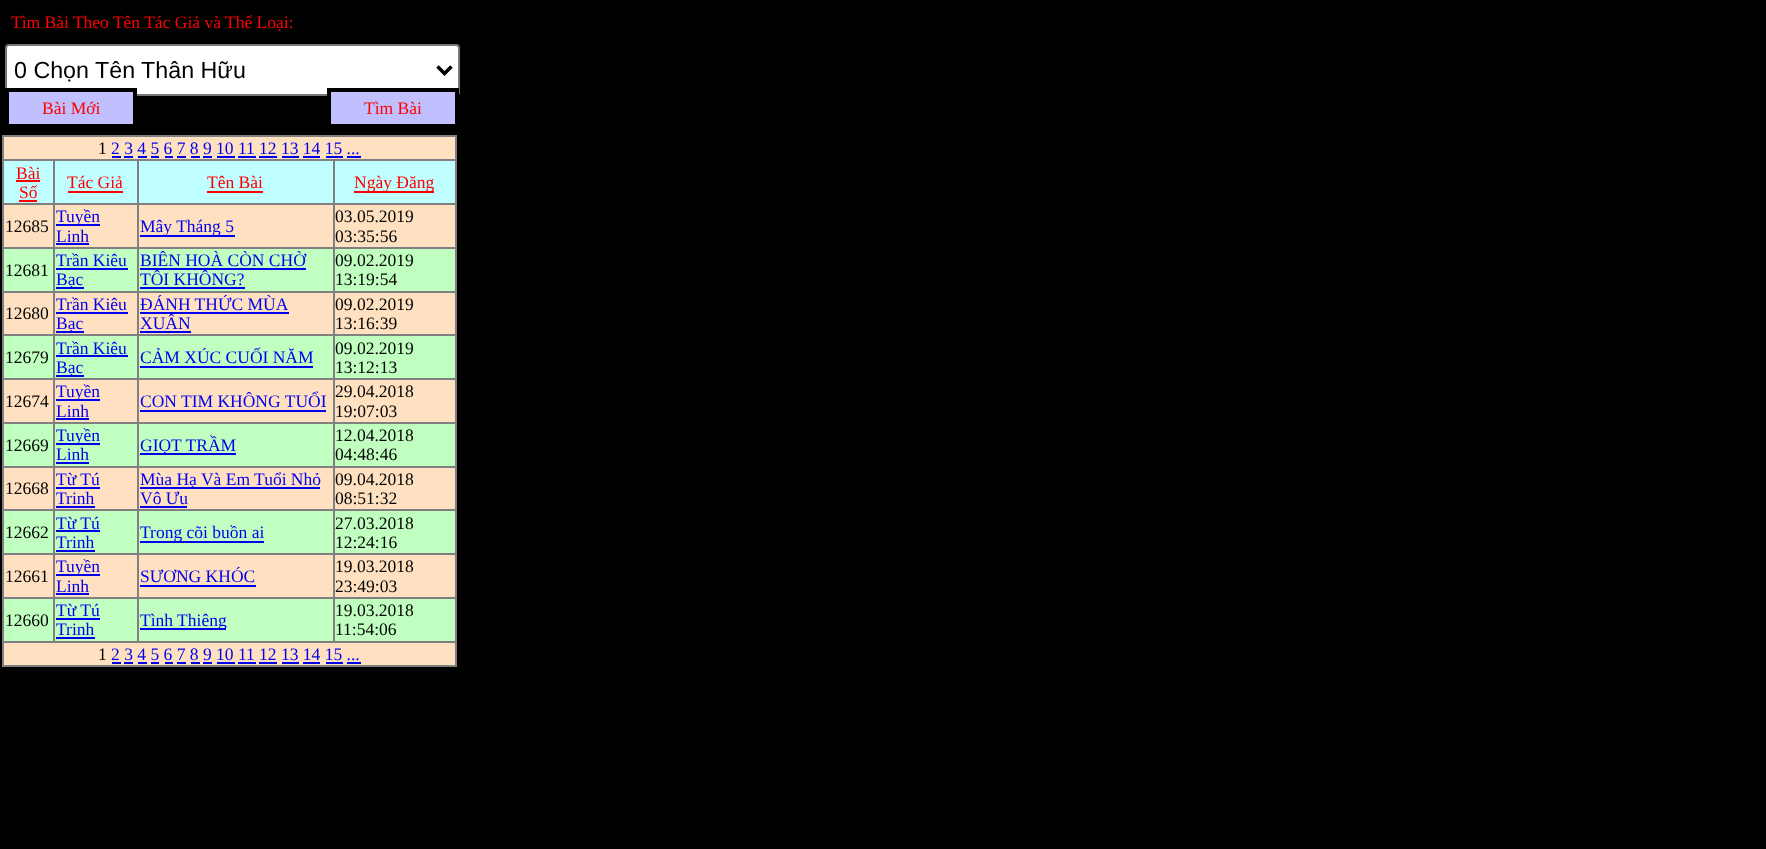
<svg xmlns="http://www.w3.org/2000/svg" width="1766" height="849">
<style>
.a{font:17.5px Liberation Serif;fill:#f00}
.b{font:23.25px Liberation Sans;fill:#000}
.c{font:17.5px Liberation Serif;fill:#000}
.d{font:17.5px Liberation Serif;fill:#00e}
</style>
<rect width="100%" height="100%" fill="#000"/>
<rect fill="#fff" stroke="#767676" stroke-width="2" x="6" y="45" width="453" height="50" rx="3"/>
<path fill="none" stroke="#000" stroke-width="3.5" d="M437.5 66.5l7 7l7-7"/>
<path fill="#c0c0ff" stroke="#000" stroke-width="4" d="M7 90h128v36H7z"/>
<path fill="#c0c0ff" stroke="#000" stroke-width="4" d="M329 90h128v36H329z"/>
<path fill="#ffe0c0" d="M4 137h451v528H4z"/>
<path fill="#808080" d="M2 135h455v2H2z"/>
<path fill="#808080" d="M455 135h2v532H455z"/>
<path fill="#808080" d="M2 665h455v2H2z"/>
<path fill="#808080" d="M2 135h2v532H2z"/>
<path fill="#00e" d="M112 156h9v2H112z"/>
<path fill="#00e" d="M124 156h9v2H124z"/>
<path fill="#00e" d="M138 156h9v2H138z"/>
<path fill="#00e" d="M151 156h8v2H151z"/>
<path fill="#00e" d="M165 156h8v2H165z"/>
<path fill="#00e" d="M177 156h9v2H177z"/>
<path fill="#00e" d="M191 156h9v2H191z"/>
<path fill="#00e" d="M203 156h9v2H203z"/>
<path fill="#00e" d="M217 156h18v2H217z"/>
<path fill="#00e" d="M238 156h18v2H238z"/>
<path fill="#00e" d="M259 156h18v2H259z"/>
<path fill="#00e" d="M282 156h17v2H282z"/>
<path fill="#00e" d="M303 156h17v2H303z"/>
<path fill="#00e" d="M326 156h17v2H326z"/>
<path fill="#00e" d="M347 156h14v2H347z"/>
<path fill="#c0ffff" d="M4 161h451v42H4z"/>
<path fill="#808080" d="M333 159h124v2H333z"/>
<path fill="#808080" d="M333 203h124v2H333z"/>
<path fill="#808080" d="M333 247h124v2H333z"/>
<path fill="#c0ffc0" d="M4 249h451v42H4z"/>
<path fill="#808080" d="M333 291h124v2H333z"/>
<path fill="#808080" d="M333 334h124v2H333z"/>
<path fill="#c0ffc0" d="M4 336h451v42H4z"/>
<path fill="#808080" d="M333 378h124v2H333z"/>
<path fill="#808080" d="M333 422h124v2H333z"/>
<path fill="#c0ffc0" d="M4 424h451v42H4z"/>
<path fill="#808080" d="M333 466h124v2H333z"/>
<path fill="#808080" d="M333 509h124v2H333z"/>
<path fill="#c0ffc0" d="M4 511h451v42H4z"/>
<path fill="#808080" d="M333 553h124v2H333z"/>
<path fill="#808080" d="M333 597h124v2H333z"/>
<path fill="#c0ffc0" d="M4 599h451v42H4z"/>
<path fill="#808080" d="M2 641h455v2H2z"/>
<path fill="#808080" d="M333 597h2v45H333z"/>
<path fill="#808080" d="M137 597h197v2H137z"/>
<path fill="#808080" d="M333 553h2v46H333z"/>
<path fill="#808080" d="M137 553h197v2H137z"/>
<path fill="#808080" d="M333 509h2v46H333z"/>
<path fill="#808080" d="M137 509h197v2H137z"/>
<path fill="#808080" d="M333 466h2v45H333z"/>
<path fill="#808080" d="M137 466h197v2H137z"/>
<path fill="#808080" d="M333 422h2v45H333z"/>
<path fill="#808080" d="M137 422h197v2H137z"/>
<path fill="#808080" d="M333 378h2v46H333z"/>
<path fill="#808080" d="M137 378h197v2H137z"/>
<path fill="#808080" d="M333 334h2v46H333z"/>
<path fill="#808080" d="M137 334h197v2H137z"/>
<path fill="#808080" d="M333 291h2v45H333z"/>
<path fill="#808080" d="M137 291h197v2H137z"/>
<path fill="#808080" d="M333 247h2v45H333z"/>
<path fill="#808080" d="M137 247h197v2H137z"/>
<path fill="#808080" d="M333 203h2v46H333z"/>
<path fill="#808080" d="M137 203h197v2H137z"/>
<path fill="#808080" d="M333 159h2v46H333z"/>
<path fill="#808080" d="M137 159h197v2H137z"/>
<path fill="#808080" d="M137 597h2v45H137z"/>
<path fill="#808080" d="M53 597h85v2H53z"/>
<path fill="#808080" d="M137 553h2v46H137z"/>
<path fill="#808080" d="M53 553h85v2H53z"/>
<path fill="#808080" d="M137 509h2v46H137z"/>
<path fill="#808080" d="M53 509h85v2H53z"/>
<path fill="#808080" d="M137 466h2v45H137z"/>
<path fill="#808080" d="M53 466h85v2H53z"/>
<path fill="#808080" d="M137 422h2v45H137z"/>
<path fill="#808080" d="M53 422h85v2H53z"/>
<path fill="#808080" d="M137 378h2v46H137z"/>
<path fill="#808080" d="M53 378h85v2H53z"/>
<path fill="#808080" d="M137 334h2v46H137z"/>
<path fill="#808080" d="M53 334h85v2H53z"/>
<path fill="#808080" d="M137 291h2v45H137z"/>
<path fill="#808080" d="M53 291h85v2H53z"/>
<path fill="#808080" d="M137 247h2v45H137z"/>
<path fill="#808080" d="M53 247h85v2H53z"/>
<path fill="#808080" d="M137 203h2v46H137z"/>
<path fill="#808080" d="M53 203h85v2H53z"/>
<path fill="#808080" d="M137 159h2v46H137z"/>
<path fill="#808080" d="M53 159h85v2H53z"/>
<path fill="#808080" d="M53 597h2v45H53z"/>
<path fill="#808080" d="M2 597h52v2H2z"/>
<path fill="#808080" d="M53 553h2v46H53z"/>
<path fill="#808080" d="M2 553h52v2H2z"/>
<path fill="#808080" d="M53 509h2v46H53z"/>
<path fill="#808080" d="M2 509h52v2H2z"/>
<path fill="#808080" d="M53 466h2v45H53z"/>
<path fill="#808080" d="M2 466h52v2H2z"/>
<path fill="#808080" d="M53 422h2v45H53z"/>
<path fill="#808080" d="M2 422h52v2H2z"/>
<path fill="#808080" d="M53 378h2v46H53z"/>
<path fill="#808080" d="M2 378h52v2H2z"/>
<path fill="#808080" d="M53 334h2v46H53z"/>
<path fill="#808080" d="M2 334h52v2H2z"/>
<path fill="#808080" d="M53 291h2v45H53z"/>
<path fill="#808080" d="M2 291h52v2H2z"/>
<path fill="#808080" d="M53 247h2v45H53z"/>
<path fill="#808080" d="M2 247h52v2H2z"/>
<path fill="#808080" d="M53 203h2v46H53z"/>
<path fill="#808080" d="M2 203h52v2H2z"/>
<path fill="#808080" d="M53 159h2v46H53z"/>
<path fill="#808080" d="M2 159h52v2H2z"/>
<path fill="#f00" d="M16 180h24v2H16z"/>
<path fill="#f00" d="M19 200h18v2H19z"/>
<path fill="#f00" d="M68 191h55v2H68z"/>
<path fill="#f00" d="M207 191h56v2H207z"/>
<path fill="#f00" d="M354 191h80v2H354z"/>
<path fill="#00e" d="M56 224h44v2H56z"/>
<path fill="#00e" d="M56 243h33v2H56z"/>
<path fill="#00e" d="M140 235h95v2H140z"/>
<path fill="#00e" d="M56 268h72v2H56z"/>
<path fill="#00e" d="M56 287h28v2H56z"/>
<path fill="#00e" d="M140 268h166v2H140z"/>
<path fill="#00e" d="M140 287h105v2H140z"/>
<path fill="#00e" d="M56 312h72v2H56z"/>
<path fill="#00e" d="M56 331h28v2H56z"/>
<path fill="#00e" d="M140 312h149v2H140z"/>
<path fill="#00e" d="M140 331h51v2H140z"/>
<path fill="#00e" d="M56 355h72v2H56z"/>
<path fill="#00e" d="M56 375h28v2H56z"/>
<path fill="#00e" d="M140 366h173v2H140z"/>
<path fill="#00e" d="M56 399h44v2H56z"/>
<path fill="#00e" d="M56 418h33v2H56z"/>
<path fill="#00e" d="M140 410h186v2H140z"/>
<path fill="#00e" d="M56 443h44v2H56z"/>
<path fill="#00e" d="M56 462h33v2H56z"/>
<path fill="#00e" d="M140 453h96v2H140z"/>
<path fill="#00e" d="M56 487h44v2H56z"/>
<path fill="#00e" d="M56 506h39v2H56z"/>
<path fill="#00e" d="M140 487h180v2H140z"/>
<path fill="#00e" d="M140 506h47v2H140z"/>
<path fill="#00e" d="M56 530h44v2H56z"/>
<path fill="#00e" d="M56 550h39v2H56z"/>
<path fill="#00e" d="M140 541h124v2H140z"/>
<path fill="#00e" d="M56 574h44v2H56z"/>
<path fill="#00e" d="M56 593h33v2H56z"/>
<path fill="#00e" d="M140 585h116v2H140z"/>
<path fill="#00e" d="M56 618h44v2H56z"/>
<path fill="#00e" d="M56 637h39v2H56z"/>
<path fill="#00e" d="M140 628h86v2H140z"/>
<path fill="#00e" d="M112 662h9v2H112z"/>
<path fill="#00e" d="M124 662h9v2H124z"/>
<path fill="#00e" d="M138 662h9v2H138z"/>
<path fill="#00e" d="M151 662h8v2H151z"/>
<path fill="#00e" d="M165 662h8v2H165z"/>
<path fill="#00e" d="M177 662h9v2H177z"/>
<path fill="#00e" d="M191 662h9v2H191z"/>
<path fill="#00e" d="M203 662h9v2H203z"/>
<path fill="#00e" d="M217 662h18v2H217z"/>
<path fill="#00e" d="M238 662h18v2H238z"/>
<path fill="#00e" d="M259 662h18v2H259z"/>
<path fill="#00e" d="M282 662h17v2H282z"/>
<path fill="#00e" d="M303 662h17v2H303z"/>
<path fill="#00e" d="M326 662h17v2H326z"/>
<path fill="#00e" d="M347 662h14v2H347z"/>
<text class="a" x="11" y="28">Tìm Bài Theo Tên Tác Giả và Thể Loại:</text>
<text class="b" x="14" y="78">0 Chọn Tên Thân Hữu</text>
<text class="a" x="42" y="114">Bài Mới</text>
<text class="a" x="364" y="114">Tìm Bài</text>
<text class="c" x="98" y="154">1</text>
<text class="d" x="111" y="154">2 3 4 5 6 7 8 9 10 11 12 13 14 15 ...</text>
<text class="a" x="16" y="179">Bài</text>
<text class="a" x="19" y="198">Số</text>
<text class="a" x="67" y="188">Tác Giả</text>
<text class="a" x="207" y="188">Tên Bài</text>
<text class="a" x="354" y="188">Ngày Ðăng</text>
<text class="c" x="5" y="232">12685</text>
<text class="d" x="56" y="222">Tuyền</text>
<text class="d" x="56" y="242">Linh</text>
<text class="d" x="140" y="232">Mây Tháng 5</text>
<text class="c" x="335" y="222">03.05.2019</text>
<text class="c" x="335" y="242">03:35:56</text>
<text class="c" x="5" y="276">12681</text>
<text class="d" x="56" y="266">Trần Kiêu</text>
<text class="d" x="56" y="285">Bạc</text>
<text class="d" x="140" y="266">BIÊN HOÀ CÒN CHỜ</text>
<text class="d" x="140" y="285">TÔI KHÔNG?</text>
<text class="c" x="335" y="266">09.02.2019</text>
<text class="c" x="335" y="285">13:19:54</text>
<text class="c" x="5" y="319">12680</text>
<text class="d" x="56" y="310">Trần Kiêu</text>
<text class="d" x="56" y="329">Bạc</text>
<text class="d" x="140" y="310">ĐÁNH THỨC MÙA</text>
<text class="d" x="140" y="329">XUÂN</text>
<text class="c" x="335" y="310">09.02.2019</text>
<text class="c" x="335" y="329">13:16:39</text>
<text class="c" x="5" y="363">12679</text>
<text class="d" x="56" y="354">Trần Kiêu</text>
<text class="d" x="56" y="373">Bạc</text>
<text class="d" x="140" y="363">CẢM XÚC CUỐI NĂM</text>
<text class="c" x="335" y="354">09.02.2019</text>
<text class="c" x="335" y="373">13:12:13</text>
<text class="c" x="5" y="407">12674</text>
<text class="d" x="56" y="397">Tuyền</text>
<text class="d" x="56" y="417">Linh</text>
<text class="d" x="140" y="407">CON TIM KHÔNG TUỔI</text>
<text class="c" x="335" y="397">29.04.2018</text>
<text class="c" x="335" y="417">19:07:03</text>
<text class="c" x="5" y="451">12669</text>
<text class="d" x="56" y="441">Tuyền</text>
<text class="d" x="56" y="460">Linh</text>
<text class="d" x="140" y="451">GIỌT TRẦM</text>
<text class="c" x="335" y="441">12.04.2018</text>
<text class="c" x="335" y="460">04:48:46</text>
<text class="c" x="5" y="494">12668</text>
<text class="d" x="56" y="485">Từ Tú</text>
<text class="d" x="56" y="504">Trinh</text>
<text class="d" x="140" y="485">Mùa Hạ Và Em Tuổi Nhỏ</text>
<text class="d" x="140" y="504">Vô Ưu</text>
<text class="c" x="335" y="485">09.04.2018</text>
<text class="c" x="335" y="504">08:51:32</text>
<text class="c" x="5" y="538">12662</text>
<text class="d" x="56" y="529">Từ Tú</text>
<text class="d" x="56" y="548">Trinh</text>
<text class="d" x="140" y="538">Trong cõi buồn ai</text>
<text class="c" x="335" y="529">27.03.2018</text>
<text class="c" x="335" y="548">12:24:16</text>
<text class="c" x="5" y="582">12661</text>
<text class="d" x="56" y="572">Tuyền</text>
<text class="d" x="56" y="592">Linh</text>
<text class="d" x="140" y="582">SƯƠNG KHÓC</text>
<text class="c" x="335" y="572">19.03.2018</text>
<text class="c" x="335" y="592">23:49:03</text>
<text class="c" x="5" y="626">12660</text>
<text class="d" x="56" y="616">Từ Tú</text>
<text class="d" x="56" y="635">Trinh</text>
<text class="d" x="140" y="626">Tình Thiêng</text>
<text class="c" x="335" y="616">19.03.2018</text>
<text class="c" x="335" y="635">11:54:06</text>
<text class="c" x="98" y="660">1</text>
<text class="d" x="111" y="660">2 3 4 5 6 7 8 9 10 11 12 13 14 15 ...</text>
</svg>
